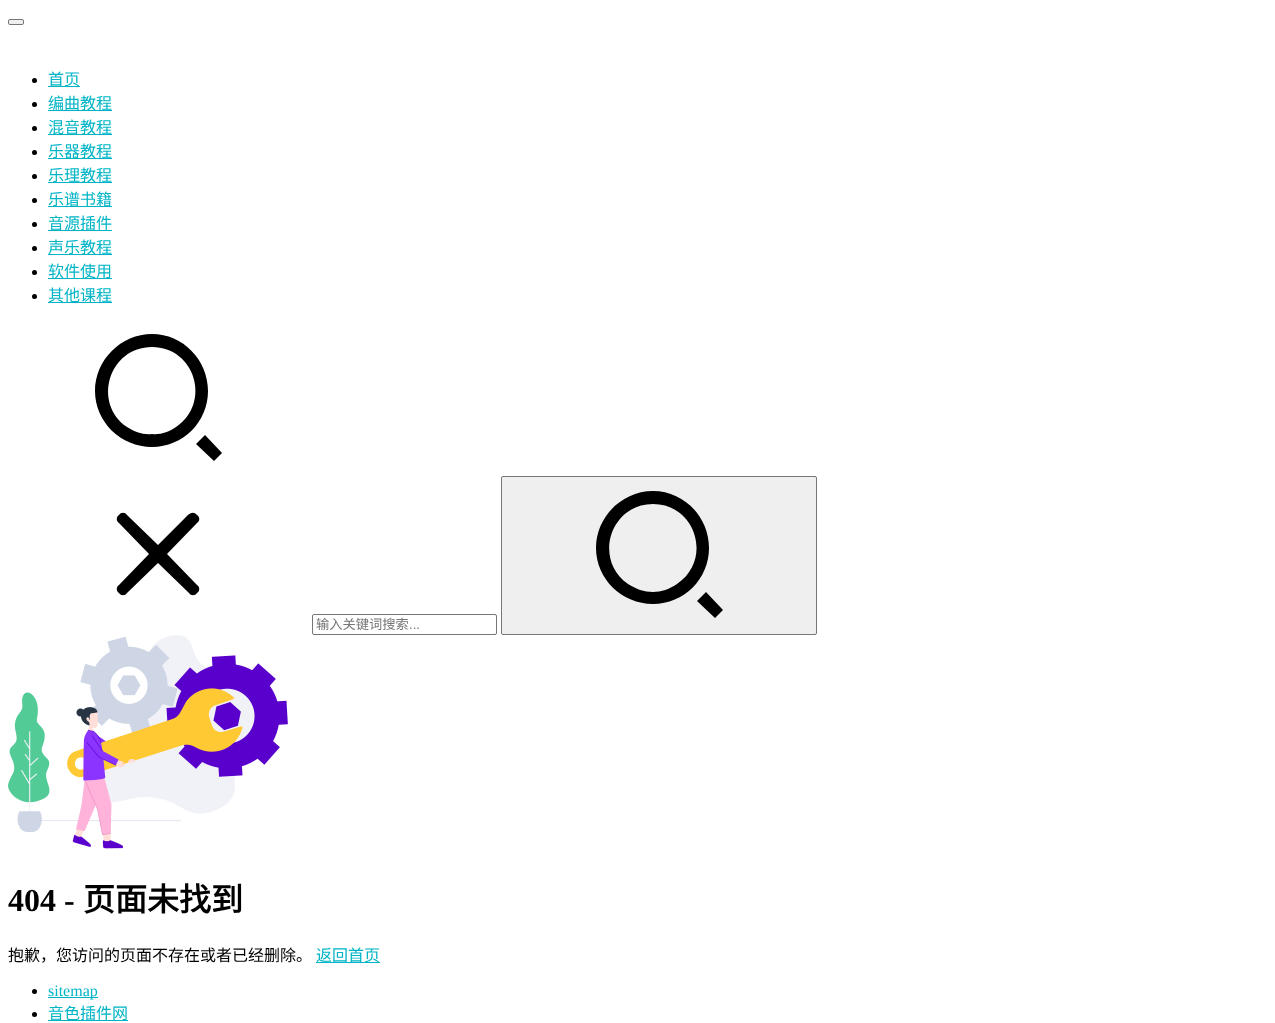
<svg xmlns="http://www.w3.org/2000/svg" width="1275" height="1023">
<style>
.a{font:16px Noto Sans CJK SC;fill:#00b4c6}
.b{font:13.25px Noto Sans CJK SC;fill:#757575}
.c{font:13.25px Liberation Sans;fill:#757575}
.d{font:bold 32px Liberation Serif;fill:#000}
.e{font:bold 32px Noto Sans CJK SC;fill:#000}
.f{font:16px Noto Sans CJK SC;fill:#000}
.g{font:16px Liberation Serif;fill:#00b4c6}
</style>
<rect width="100%" height="100%" fill="#fff"/>
<rect fill="#efefef" stroke="#767676" x="8.5" y="19.5" width="15" height="5" rx="1.5"/>
<circle fill="#000" cx="34.5" cy="80.5" r="2.5"/>
<path fill="#00b4c6" d="M48 86h32v1H48z"/>
<circle fill="#000" cx="34.5" cy="104.5" r="2.5"/>
<path fill="#00b4c6" d="M48 110h64v1H48z"/>
<circle fill="#000" cx="34.5" cy="128.5" r="2.5"/>
<path fill="#00b4c6" d="M48 134h64v1H48z"/>
<circle fill="#000" cx="34.5" cy="152.5" r="2.5"/>
<path fill="#00b4c6" d="M48 158h64v1H48z"/>
<circle fill="#000" cx="34.5" cy="176.5" r="2.5"/>
<path fill="#00b4c6" d="M48 182h64v1H48z"/>
<circle fill="#000" cx="34.5" cy="200.5" r="2.5"/>
<path fill="#00b4c6" d="M48 206h64v1H48z"/>
<circle fill="#000" cx="34.5" cy="224.5" r="2.5"/>
<path fill="#00b4c6" d="M48 230h64v1H48z"/>
<circle fill="#000" cx="34.5" cy="248.5" r="2.5"/>
<path fill="#00b4c6" d="M48 254h64v1H48z"/>
<circle fill="#000" cx="34.5" cy="272.5" r="2.5"/>
<path fill="#00b4c6" d="M48 278h64v1H48z"/>
<circle fill="#000" cx="34.5" cy="296.5" r="2.5"/>
<path fill="#00b4c6" d="M48 302h64v1H48z"/>
<path fill="#000" d="M152 334c31 0 56 26 56 57c0 31-25 56-56 56c-31 0-57-25-57-56c0-31 26-57 57-57zm0 100c8 1 17-2 24-7c36-24 19-80-24-80c-43 0-60 56-25 80c8 5 16 8 25 7zm53 1l17 18l-8 8l-18-17z"/>
<path fill="#000" d="M197 515c-5-6-10 1-14 5l-25 25l-31-30c-2-3-6-3-8 0c-3 2-3 6 0 8l30 31l-30 31c-3 2-3 6 0 8c2 3 6 3 8 0l31-30l31 30c2 3 6 3 8 0c3-2 3-6 0-8l-30-31l30-31c3-2 3-6 0-8z"/>
<rect fill="#efefef" stroke="#767676" x="501.5" y="476.5" width="315" height="158" rx="1.5"/>
<path fill="#000" d="M653 491c31 0 56 26 56 57c0 31-25 56-56 56c-31 0-57-25-57-56c0-31 26-57 57-57zm0 101c8 0 17-3 24-8c36-24 19-80-24-80c-43 0-60 56-25 80c8 5 16 8 25 8zm53 0l17 18l-8 8l-18-17z"/>
<rect fill="none" stroke="#767676" x="312.5" y="614.5" width="184" height="20" rx="1.5"/>
<image href="1.png" x="8" y="635" width="280" height="214"/>
<path fill="#00b4c6" d="M316 962h64v1H316z"/>
<circle fill="#000" cx="34.5" cy="991.5" r="2.5"/>
<path fill="#00b4c6" d="M48 997h50v1H48z"/>
<circle fill="#000" cx="34.5" cy="1014.5" r="2.5"/>
<path fill="#00b4c6" d="M48 1020h80v1H48z"/>
<text class="a" x="48" y="85">首页</text>
<text class="a" x="48" y="109">编曲教程</text>
<text class="a" x="48" y="133">混音教程</text>
<text class="a" x="48" y="157">乐器教程</text>
<text class="a" x="48" y="181">乐理教程</text>
<text class="a" x="48" y="205">乐谱书籍</text>
<text class="a" x="48" y="229">音源插件</text>
<text class="a" x="48" y="253">声乐教程</text>
<text class="a" x="48" y="277">软件使用</text>
<text class="a" x="48" y="301">其他课程</text>
<text class="b" x="316" y="629">输入关键词搜索</text>
<text class="c" x="409" y="629">...</text>
<text class="d" x="8" y="911">404 -</text>
<text class="e" x="83" y="911">页面未找到</text>
<text class="f" x="8" y="961">抱歉，您访问的页面不存在或者已经删除。</text>
<text class="a" x="316" y="961">返回首页</text>
<text class="g" x="48" y="996">sitemap</text>
<text class="a" x="48" y="1019">音色插件网</text>
</svg>
